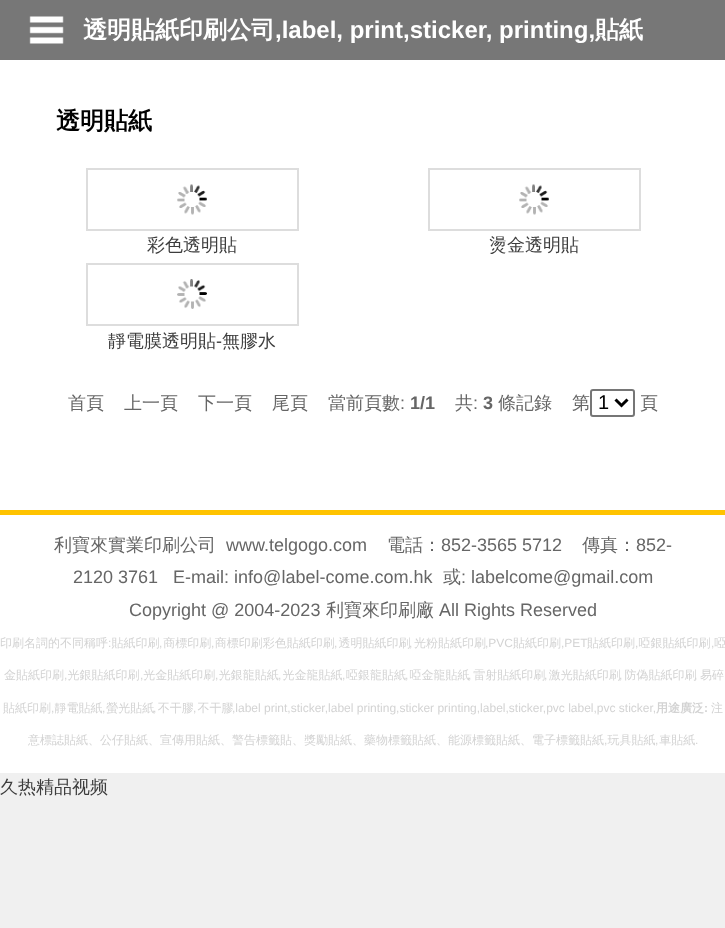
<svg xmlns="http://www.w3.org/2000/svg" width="725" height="928">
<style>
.a{font:bold 24px WenQuanYi Zen Hei;fill:#fff}
.b{font:bold 24px Liberation Sans;fill:#fff}
.c{font:bold 24px WenQuanYi Zen Hei;fill:#000}
.d{font:500 18px WenQuanYi Zen Hei;fill:#3d3d3d}
.e{font:18px Liberation Sans;fill:#3d3d3d}
.f{font:500 18px WenQuanYi Zen Hei;fill:#666}
.g{font:18px Liberation Sans;fill:#666}
.h{font:bold 18px Liberation Sans;fill:#666}
.i{font:20px Liberation Sans;fill:#000}
.j{font:500 12px WenQuanYi Zen Hei;fill:#d3d3d3}
.k{font:12px Liberation Sans;fill:#d3d3d3}
.l{font:bold 12px WenQuanYi Zen Hei;fill:#d3d3d3}
.m{font:bold 12px Liberation Sans;fill:#d3d3d3}
</style>
<rect width="100%" height="100%" fill="#f0f0f0"/>
<path fill="#fff" d="M0 60h725v713H0z"/>
<path fill="#777" d="M0 0h725v60H0z"/>
<image href="1.png" x="29" y="16" width="35" height="28"/>
<path fill="none" stroke="#ddd" stroke-width="2" d="M87 169h211v61H87z"/>
<image href="2.png" x="177" y="184" width="30" height="31"/>
<path fill="none" stroke="#ddd" stroke-width="2" d="M429 169h211v61H429z"/>
<image href="2.png" x="519" y="184" width="30" height="31"/>
<path fill="none" stroke="#ddd" stroke-width="2" d="M87 264h211v61H87z"/>
<image href="3.png" x="177" y="279" width="30" height="30"/>
<rect fill="none" stroke="#767676" stroke-width="2" x="591" y="390" width="43" height="26" rx="2"/>
<path fill="none" stroke="#000" stroke-width="3" d="M615.5 399.5l6 6l6-6"/>
<path fill="#ffc300" d="M0 510h725v5H0z"/>
<text class="a" x="83" y="38">透明貼紙印刷公司</text>
<text class="b" x="275" y="38">,label, print,sticker, printing,</text>
<text class="a" x="595" y="38">貼紙</text>
<text class="c" x="56" y="129">透明貼紙</text>
<text class="d" x="147" y="251">彩色透明貼</text>
<text class="d" x="489" y="251">燙金透明貼</text>
<text class="d" x="108" y="347">靜電膜透明貼</text>
<text class="e" x="216" y="347">-</text>
<text class="d" x="222" y="347">無膠水</text>
<text class="f" x="68" y="409">首頁</text>
<text class="f" x="124" y="409">上一頁</text>
<text class="f" x="198" y="409">下一頁</text>
<text class="f" x="272" y="409">尾頁</text>
<text class="f" x="328" y="409">當前頁數</text>
<text class="g" x="400" y="409">:</text>
<text class="h" x="410" y="409">1/1</text>
<text class="f" x="455" y="409">共</text>
<text class="g" x="473" y="409">:</text>
<text class="h" x="483" y="409">3</text>
<text class="f" x="498" y="409">條記錄</text>
<text class="f" x="572" y="409">第</text>
<text class="i" x="598" y="409">1</text>
<text class="f" x="640" y="409">頁</text>
<text class="f" x="54" y="551">利寶來實業印刷公司</text>
<text class="g" x="226" y="551">www.telgogo.com</text>
<text class="f" x="387" y="551">電話：</text>
<text class="g" x="441" y="551">852-3565 5712</text>
<text class="f" x="582" y="551">傳真：</text>
<text class="g" x="636" y="551">852-</text>
<text class="g" xml:space="preserve" x="73" y="583">2120 3761   E-mail: info@label-come.com.hk</text>
<text class="f" x="443" y="583">或</text>
<text class="g" x="461" y="583">: labelcome@gmail.com</text>
<text class="g" x="129" y="616">Copyright @ 2004-2023</text>
<text class="f" x="326" y="616">利寶來印刷廠</text>
<text class="g" x="439" y="616">All Rights Reserved</text>
<text class="j" x="0" y="647">印刷名詞的不同稱呼 貼紙印刷 商標印刷 商標印刷彩色貼紙印刷 透明貼紙印刷 光粉貼紙印刷</text>
<text class="k" x="485" y="647">,PVC</text>
<text class="j" x="513" y="647">貼紙印刷</text>
<text class="k" x="561" y="647">,PET</text>
<text class="j" x="587" y="647">貼紙印刷 啞銀貼紙印刷 啞</text>
<text class="k" x="108" y="647">:</text>
<text class="k" x="159" y="647">,</text>
<text class="k" x="211" y="647">,</text>
<text class="k" x="334" y="647">,</text>
<text class="k" x="409" y="647">,</text>
<text class="k" x="635" y="647">,</text>
<text class="k" x="711" y="647">,</text>
<text class="j" x="4" y="679">金貼紙印刷 光銀貼紙印刷 光金貼紙印刷 光銀龍貼紙 光金龍貼紙 啞銀龍貼紙 啞金龍貼紙 雷射貼紙印刷 激光貼紙印刷 防偽貼紙印刷 易碎</text>
<text class="k" x="64" y="679">,</text>
<text class="k" x="140" y="679">,</text>
<text class="k" x="215" y="679">,</text>
<text class="k" x="278" y="679">,</text>
<text class="k" x="342" y="679">,</text>
<text class="k" x="405" y="679">,</text>
<text class="k" x="468" y="679">,</text>
<text class="k" x="544" y="679">,</text>
<text class="k" x="619" y="679">,</text>
<text class="k" x="694" y="679">,</text>
<text class="j" x="3" y="712">貼紙印刷 靜電貼紙 螢光貼紙 不干膠 不干膠</text>
<text class="k" x="232" y="712">,label print,sticker,label printing,sticker printing,label,sticker,pvc label,pvc sticker,</text>
<text class="l" x="656" y="712">用途廣泛</text>
<text class="m" x="704" y="712">:</text>
<text class="j" x="711" y="712">注</text>
<text class="k" x="51" y="712">,</text>
<text class="k" x="102" y="712">,</text>
<text class="k" x="153" y="712">,</text>
<text class="k" x="193" y="712">,</text>
<text class="j" x="28" y="744">意標誌貼紙、公仔貼紙、宣傳用貼紙、警告標籤貼、獎勵貼紙、藥物標籤貼紙、能源標籤貼紙、電子標籤貼紙 玩具貼紙 車貼紙</text>
<text class="k" x="604" y="744">,</text>
<text class="k" x="655" y="744">,</text>
<text class="k" x="695" y="744">.</text>
<text class="d" x="0" y="793">久热精品视频</text>
</svg>
